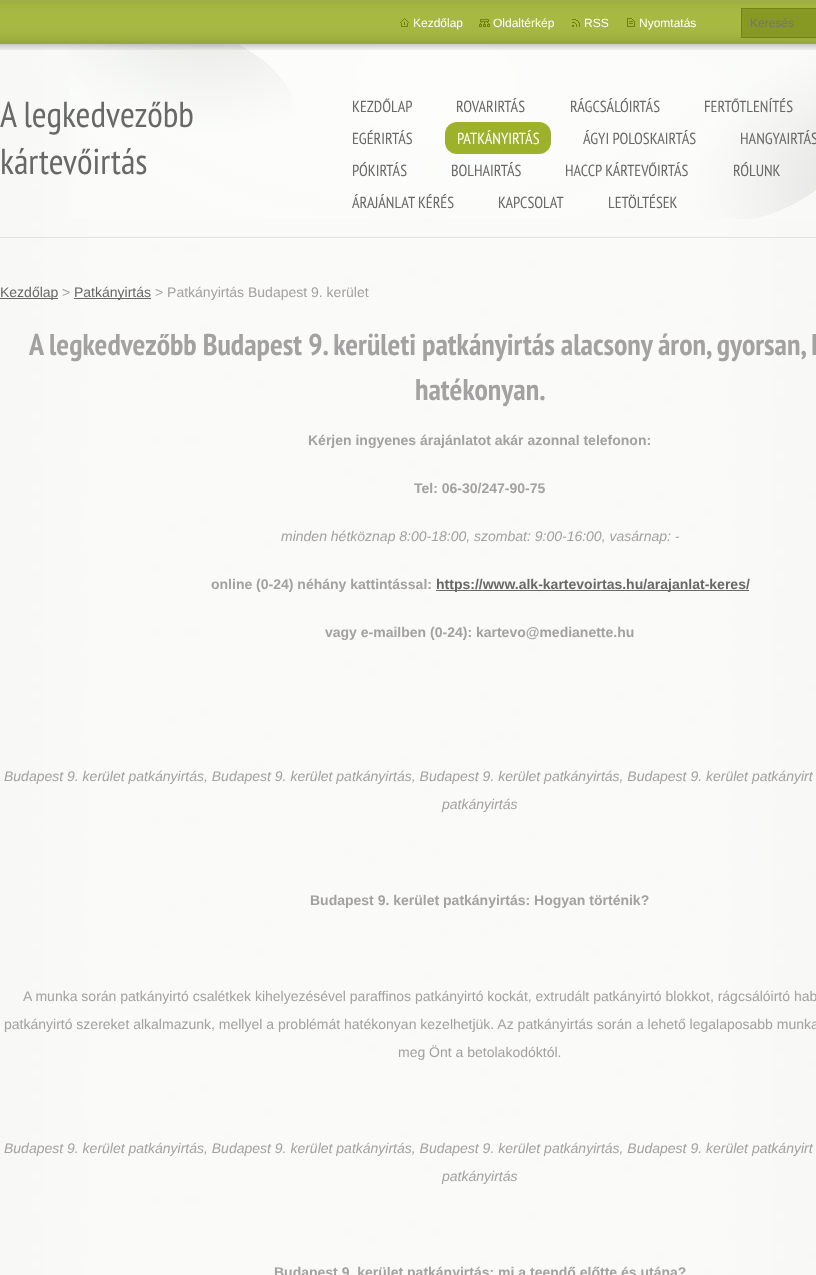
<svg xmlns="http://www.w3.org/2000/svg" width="816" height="1275">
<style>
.a{font:12px Liberation Sans;fill:#fff}
.b{font:12px Liberation Sans;fill:#757575}
.c{font:36px PT Sans Narrow;fill:#686868}
.d{font:16px PT Sans Narrow;fill:#686868}
.e{font:16px PT Sans Narrow;fill:#fff}
.f{font:14px Liberation Sans;fill:#686868}
.g{font:14px Liberation Sans;fill:#a3a1a1}
.h{font:bold 30px PT Sans Narrow;fill:#a3a1a1}
.i{font:bold 14px Liberation Sans;fill:#a3a1a1}
.j{font:italic 14px Liberation Sans;fill:#a3a1a1}
.k{font:bold 14px Liberation Sans;fill:#686868}
</style>
<rect width="100%" height="100%" fill="#fff"/>
<image href="1.png" x="0" y="44" width="816" height="1231"/>
<image href="2.png" x="69" y="44" width="747" height="175"/>
<path fill="#e2e2e0" d="M0 237h816v1H0z"/>
<image href="3.png" x="0" y="0" width="816" height="50"/>
<image href="4.png" x="400" y="18" width="9" height="9"/>
<image href="5.png" x="479" y="19" width="11" height="8"/>
<image href="6.png" x="572" y="19" width="8" height="8"/>
<image href="7.png" x="627" y="18" width="8" height="9"/>
<image href="8.png" x="741" y="8" width="75" height="30"/>
<rect fill="#9db12b" x="445" y="122" width="106" height="32" rx="12"/>
<path fill="#686868" d="M0 298h58v1H0z"/>
<path fill="#686868" d="M74 298h77v1H74z"/>
<path fill="#686868" d="M436 590h313v1H436z"/>
<text class="a" x="413" y="27">Kezdőlap</text>
<text class="a" x="493" y="27">Oldaltérkép</text>
<text class="a" x="584" y="27">RSS</text>
<text class="a" x="639" y="27">Nyomtatás</text>
<text class="b" x="750" y="27">Keresés</text>
<text class="c" x="0" y="127">A legkedvezőbb</text>
<text class="c" x="0" y="174">kártevőirtás</text>
<text class="d" x="352" y="112">KEZDŐLAP</text>
<text class="d" x="456" y="112">ROVARIRTÁS</text>
<text class="d" x="570" y="112">RÁGCSÁLÓIRTÁS</text>
<text class="d" x="704" y="112">FERTŐTLENÍTÉS</text>
<text class="d" x="352" y="144">EGÉRIRTÁS</text>
<text class="e" x="457" y="144">PATKÁNYIRTÁS</text>
<text class="d" x="583" y="144">ÁGYI POLOSKAIRTÁS</text>
<text class="d" x="740" y="144">HANGYAIRTÁS</text>
<text class="d" x="352" y="176">PÓKIRTÁS</text>
<text class="d" x="451" y="176">BOLHAIRTÁS</text>
<text class="d" x="565" y="176">HACCP KÁRTEVŐIRTÁS</text>
<text class="d" x="733" y="176">RÓLUNK</text>
<text class="d" x="352" y="208">ÁRAJÁNLAT KÉRÉS</text>
<text class="d" x="498" y="208">KAPCSOLAT</text>
<text class="d" x="608" y="208">LETÖLTÉSEK</text>
<text class="f" x="0" y="297">Kezdőlap</text>
<text class="g" x="62" y="297">&gt;</text>
<text class="f" x="74" y="297">Patkányirtás</text>
<text class="g" x="155" y="297">&gt; Patkányirtás Budapest 9. kerület</text>
<text class="h" x="29" y="355">A legkedvezőbb Budapest 9. kerületi patkányirtás alacsony áron, gyorsan, k</text>
<text class="h" x="415" y="400">hatékonyan.</text>
<text class="i" x="308" y="445">Kérjen ingyenes árajánlatot akár azonnal telefonon:</text>
<text class="i" x="414" y="493">Tel: 06-30/247-90-75</text>
<text class="j" x="281" y="541">minden hétköznap 8:00-18:00, szombat: 9:00-16:00, vasárnap: -</text>
<text class="i" x="211" y="589">online (0-24) néhány kattintással:</text>
<text class="k" x="436" y="589">https://www.alk-kartevoirtas.hu/arajanlat-keres/</text>
<text class="i" x="325" y="637">vagy e-mailben (0-24): kartevo@medianette.hu</text>
<text class="j" x="4" y="781">Budapest 9. kerület patkányirtás, Budapest 9. kerület patkányirtás, Budapest 9. kerület patkányirtás, Budapest 9. kerület patkányirt</text>
<text class="j" x="442" y="809">patkányirtás</text>
<text class="i" x="310" y="905">Budapest 9. kerület patkányirtás: Hogyan történik?</text>
<text class="g" x="23" y="1001">A munka során patkányirtó csalétkek kihelyezésével paraffinos patkányirtó kockát, extrudált patkányirtó blokkot, rágcsálóirtó hab</text>
<text class="g" x="4" y="1029">patkányirtó szereket alkalmazunk, mellyel a problémát hatékonyan kezelhetjük. Az patkányirtás során a lehető legalaposabb munka</text>
<text class="g" x="398" y="1057">meg Önt a betolakodóktól.</text>
<text class="j" x="4" y="1153">Budapest 9. kerület patkányirtás, Budapest 9. kerület patkányirtás, Budapest 9. kerület patkányirtás, Budapest 9. kerület patkányirt</text>
<text class="j" x="442" y="1181">patkányirtás</text>
<text class="i" x="274" y="1277">Budapest 9. kerület patkányirtás: mi a teendő előtte és utána?</text>
</svg>
